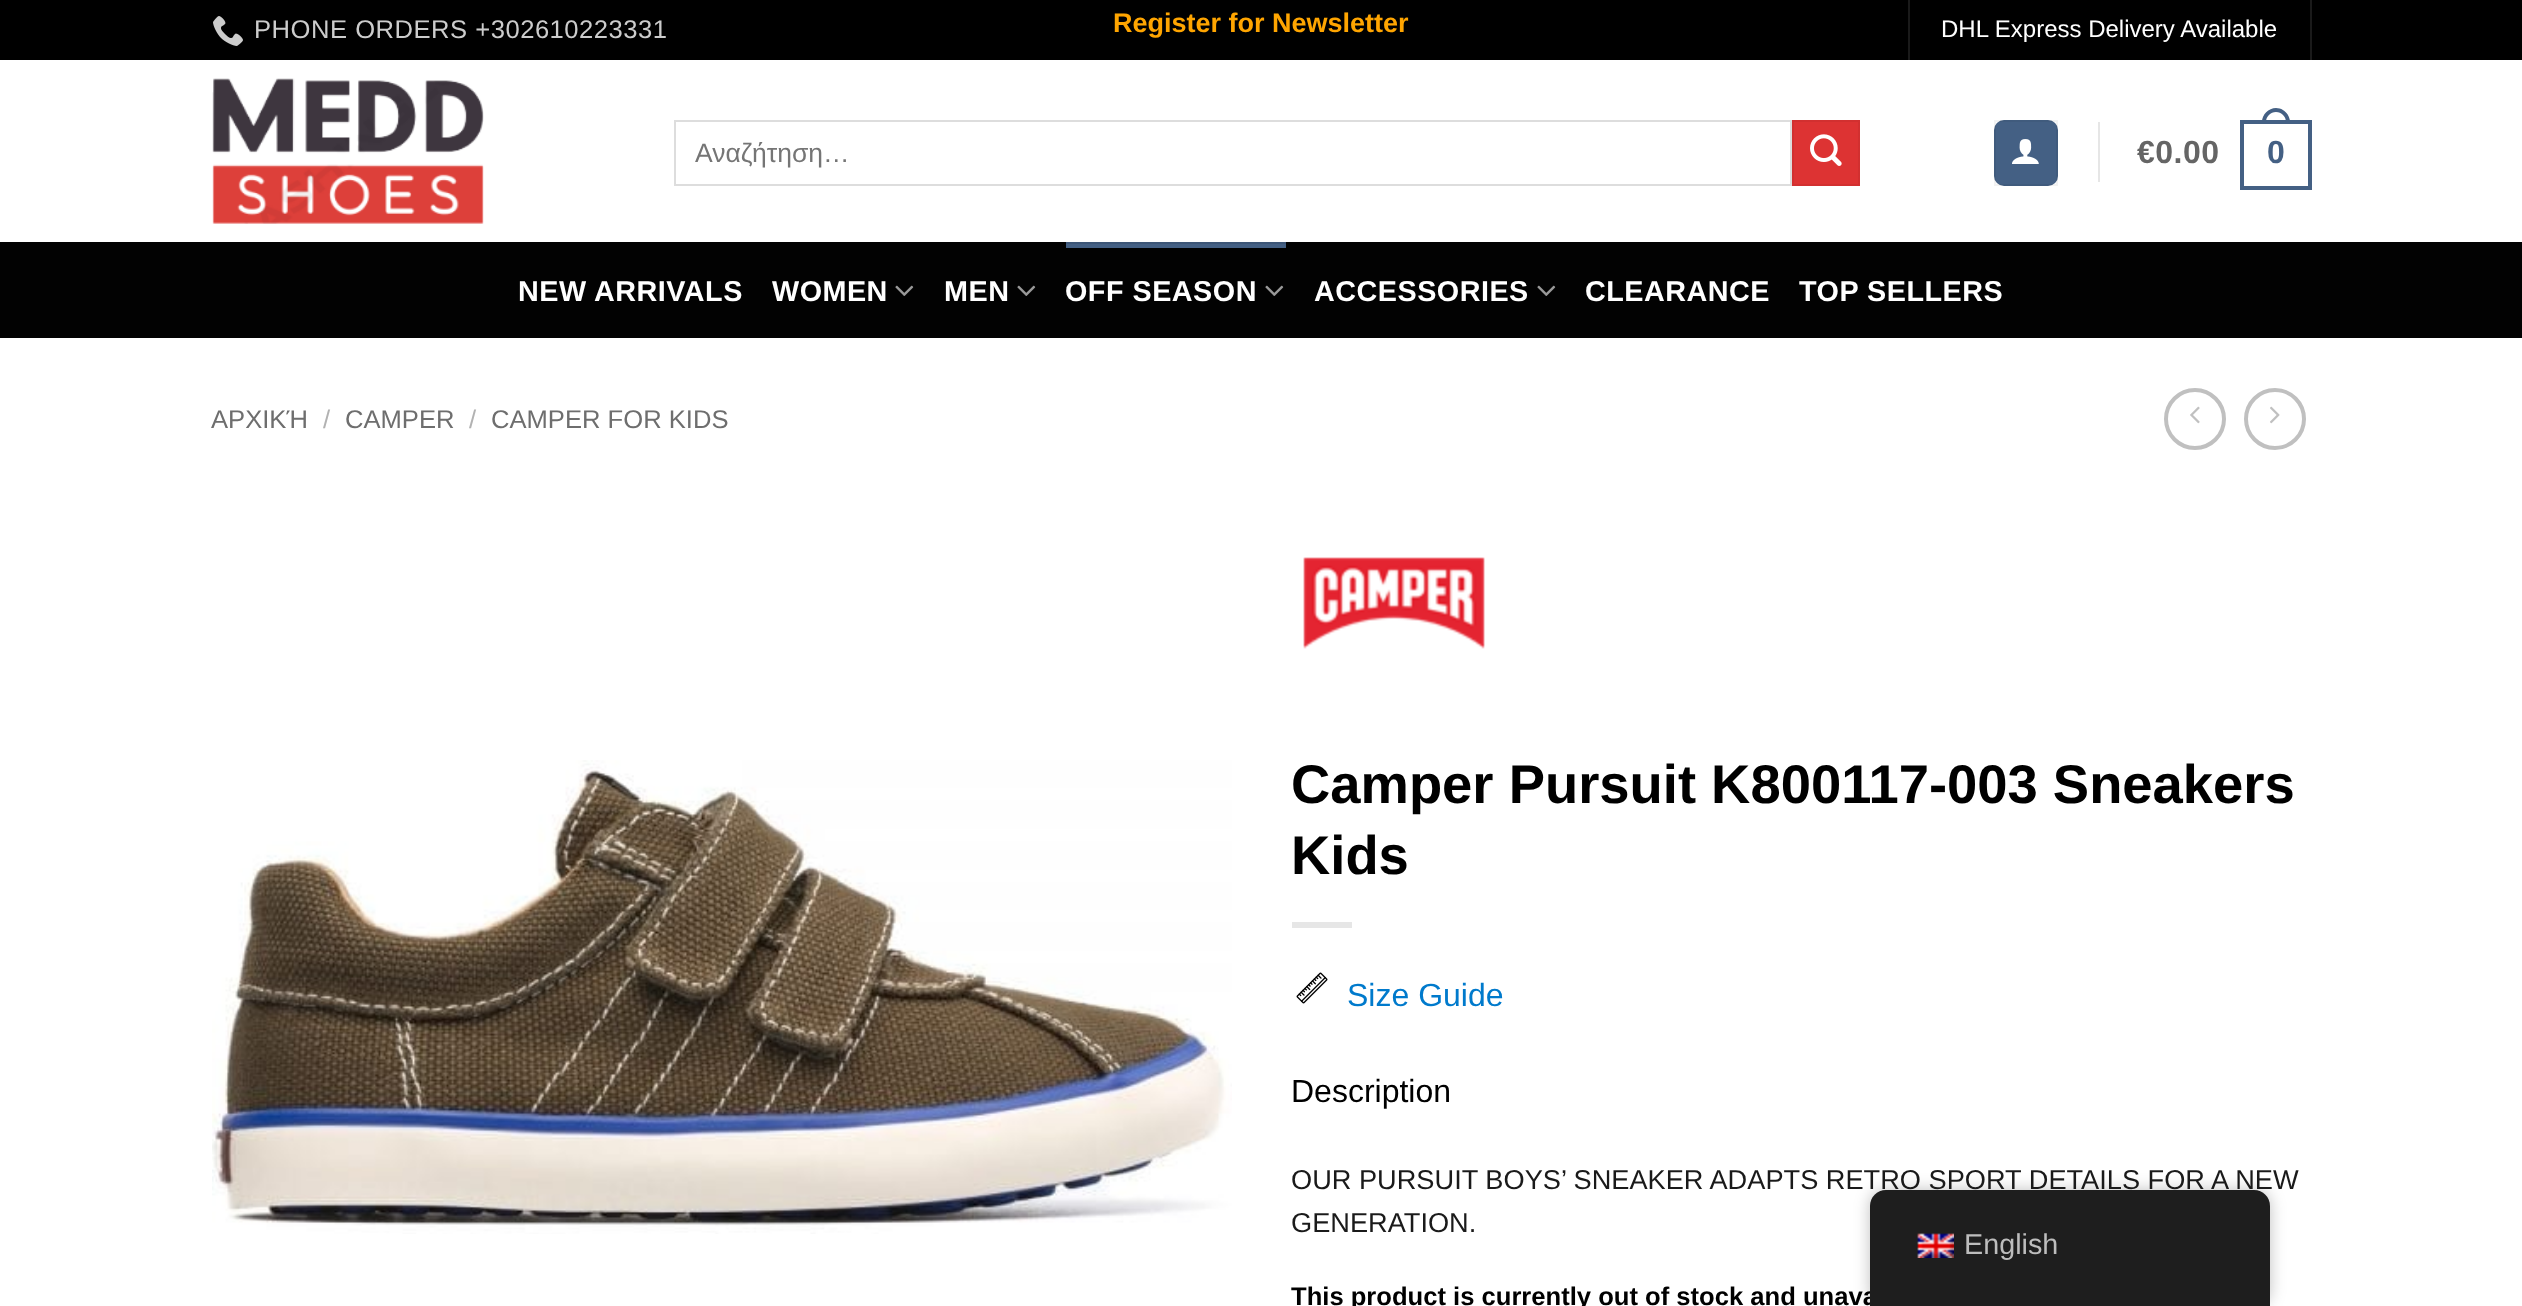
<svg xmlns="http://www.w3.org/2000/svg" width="2522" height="1306">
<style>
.a{font:25.6px Liberation Sans;letter-spacing:0.5px;fill:#ccc}
.b{font:bold 27px Liberation Sans;fill:#ffa500}
.c{font:24px Liberation Sans;fill:#fff}
.d{font:26.5px Liberation Sans;fill:#757575}
.e{font:bold 32px Liberation Sans;letter-spacing:0.5px;fill:#656565}
.f{font:bold 32px Liberation Sans;letter-spacing:0.5px;fill:#446084}
.g{font:bold 28.75px Liberation Sans;letter-spacing:0.5px;fill:#fff}
.h{font:25.6px Liberation Sans;fill:#6e6e6e}
.i{font:25.6px Liberation Sans;fill:#b2b2b2}
.j{font:bold 54.4px Liberation Sans;fill:#000}
.k{font:32px Liberation Sans;fill:#007acc}
.l{font:32px Liberation Sans;fill:#000}
.m{font:27.2px Liberation Sans;fill:#1a1a1a}
.n{font:bold 25.6px Liberation Sans;fill:#000}
.o{font:28.75px Liberation Sans;fill:#bdbdbd}
</style>
<rect width="100%" height="100%" fill="#fff"/>
<path fill="#000" d="M0 0h2522v60H0z"/>
<image href="1.png" x="213" y="16" width="30" height="30"/>
<path fill="#1a1a1a" d="M1908 0h2v60H1908z"/>
<path fill="#1a1a1a" d="M2310 0h2v60H2310z"/>
<image href="2.png" x="212" y="78" width="272" height="146"/>
<path fill="none" stroke="#ddd" stroke-width="2" d="M675 121h1116v64H675z"/>
<path fill="#d33" stroke="#d23030" stroke-width="2" d="M1793 121h66v64H1793z"/>
<image href="3.png" x="1810" y="134" width="32" height="32"/>
<rect fill="#446084" x="1994" y="120" width="64" height="66" rx="10"/>
<path fill="none" stroke="#0000000d" stroke-width="2" d="M1995 121h62v64H1995z"/>
<image href="4.png" x="2012" y="139" width="27" height="25"/>
<path fill="#e6e6e6" d="M2098 122h2v60H2098z"/>
<path fill="none" stroke="#446084" stroke-width="4" d="M2242 122h68v66H2242z"/>
<path fill="#446084" fill-rule="evenodd" d="M2276 108c7.5 0 14 6.5 14 14v2h-28v-2c0-7.5 6.5-14 14-14zm0 4c5.5 0 10 4.5 10 10v2h-20v-2c0-5.5 4.5-10 10-10z"/>
<path fill="#020202" d="M0 242h2522v96H0z"/>
<image href="5.png" x="895" y="285" width="19" height="11"/>
<image href="5.png" x="1017" y="285" width="19" height="11"/>
<path fill="#446084" d="M1066 244h220v4H1066z"/>
<path fill="#3d5677" d="M1066 242h220v2H1066z"/>
<image href="5.png" x="1265" y="285" width="19" height="11"/>
<image href="5.png" x="1537" y="285" width="19" height="11"/>
<circle fill="none" stroke="#c0c0c0" stroke-width="4" cx="2195" cy="419" r="29"/>
<image href="6.png" x="2190" y="406" width="10" height="18"/>
<circle fill="none" stroke="#c0c0c0" stroke-width="4" cx="2275" cy="419" r="29"/>
<image href="7.png" x="2270" y="406" width="10" height="18"/>
<image href="8.png" x="212" y="760" width="1020" height="474"/>
<image href="9.png" x="1303" y="557" width="182" height="92"/>
<path fill="#e6e6e6" d="M1292 922h60v6H1292z"/>
<image href="10.png" x="1296" y="972" width="32" height="32"/>
<rect fill="#00000040" filter="blur(8px)" x="1870" y="1190" width="400" height="116" rx="16"/>
<text class="a" x="254" y="38">PHONE ORDERS +302610223331</text>
<text class="b" x="1113" y="32">Register for Newsletter</text>
<text class="c" x="1941" y="37">DHL Express Delivery Available</text>
<text class="d" x="695" y="162">Αναζήτηση…</text>
<text class="e" x="2137" y="163">€0.00</text>
<text class="f" x="2267" y="163">0</text>
<text class="g" x="518" y="301">NEW ARRIVALS</text>
<text class="g" x="772" y="301">WOMEN</text>
<text class="g" x="944" y="301">MEN</text>
<text class="g" x="1065" y="301">OFF SEASON</text>
<text class="g" x="1314" y="301">ACCESSORIES</text>
<text class="g" x="1585" y="301">CLEARANCE</text>
<text class="g" x="1799" y="301">TOP SELLERS</text>
<text class="h" x="211" y="428">ΑΡΧΙΚΉ</text>
<text class="i" x="323" y="428">/</text>
<text class="h" x="345" y="428">CAMPER</text>
<text class="i" x="469" y="428">/</text>
<text class="h" x="491" y="428">CAMPER FOR KIDS</text>
<text class="j" x="1291" y="803">Camper Pursuit K800117-003 Sneakers</text>
<text class="j" x="1291" y="874">Kids</text>
<text class="k" x="1347" y="1006">Size Guide</text>
<text class="l" x="1291" y="1102">Description</text>
<text class="m" x="1291" y="1189">OUR PURSUIT BOYS’ SNEAKER ADAPTS RETRO SPORT DETAILS FOR A NEW</text>
<text class="m" x="1291" y="1232">GENERATION.</text>
<text class="n" x="1291" y="1305">This product is currently out of stock and unava</text>
<path fill="#1e1e1e" d="M1886 1190h368c9 0 16 7 16 16v100h-400v-100c0-9 7-16 16-16z"/>
<image href="11.png" x="1917" y="1233" width="37" height="25"/>
<text class="o" x="1964" y="1254">English</text>
</svg>
